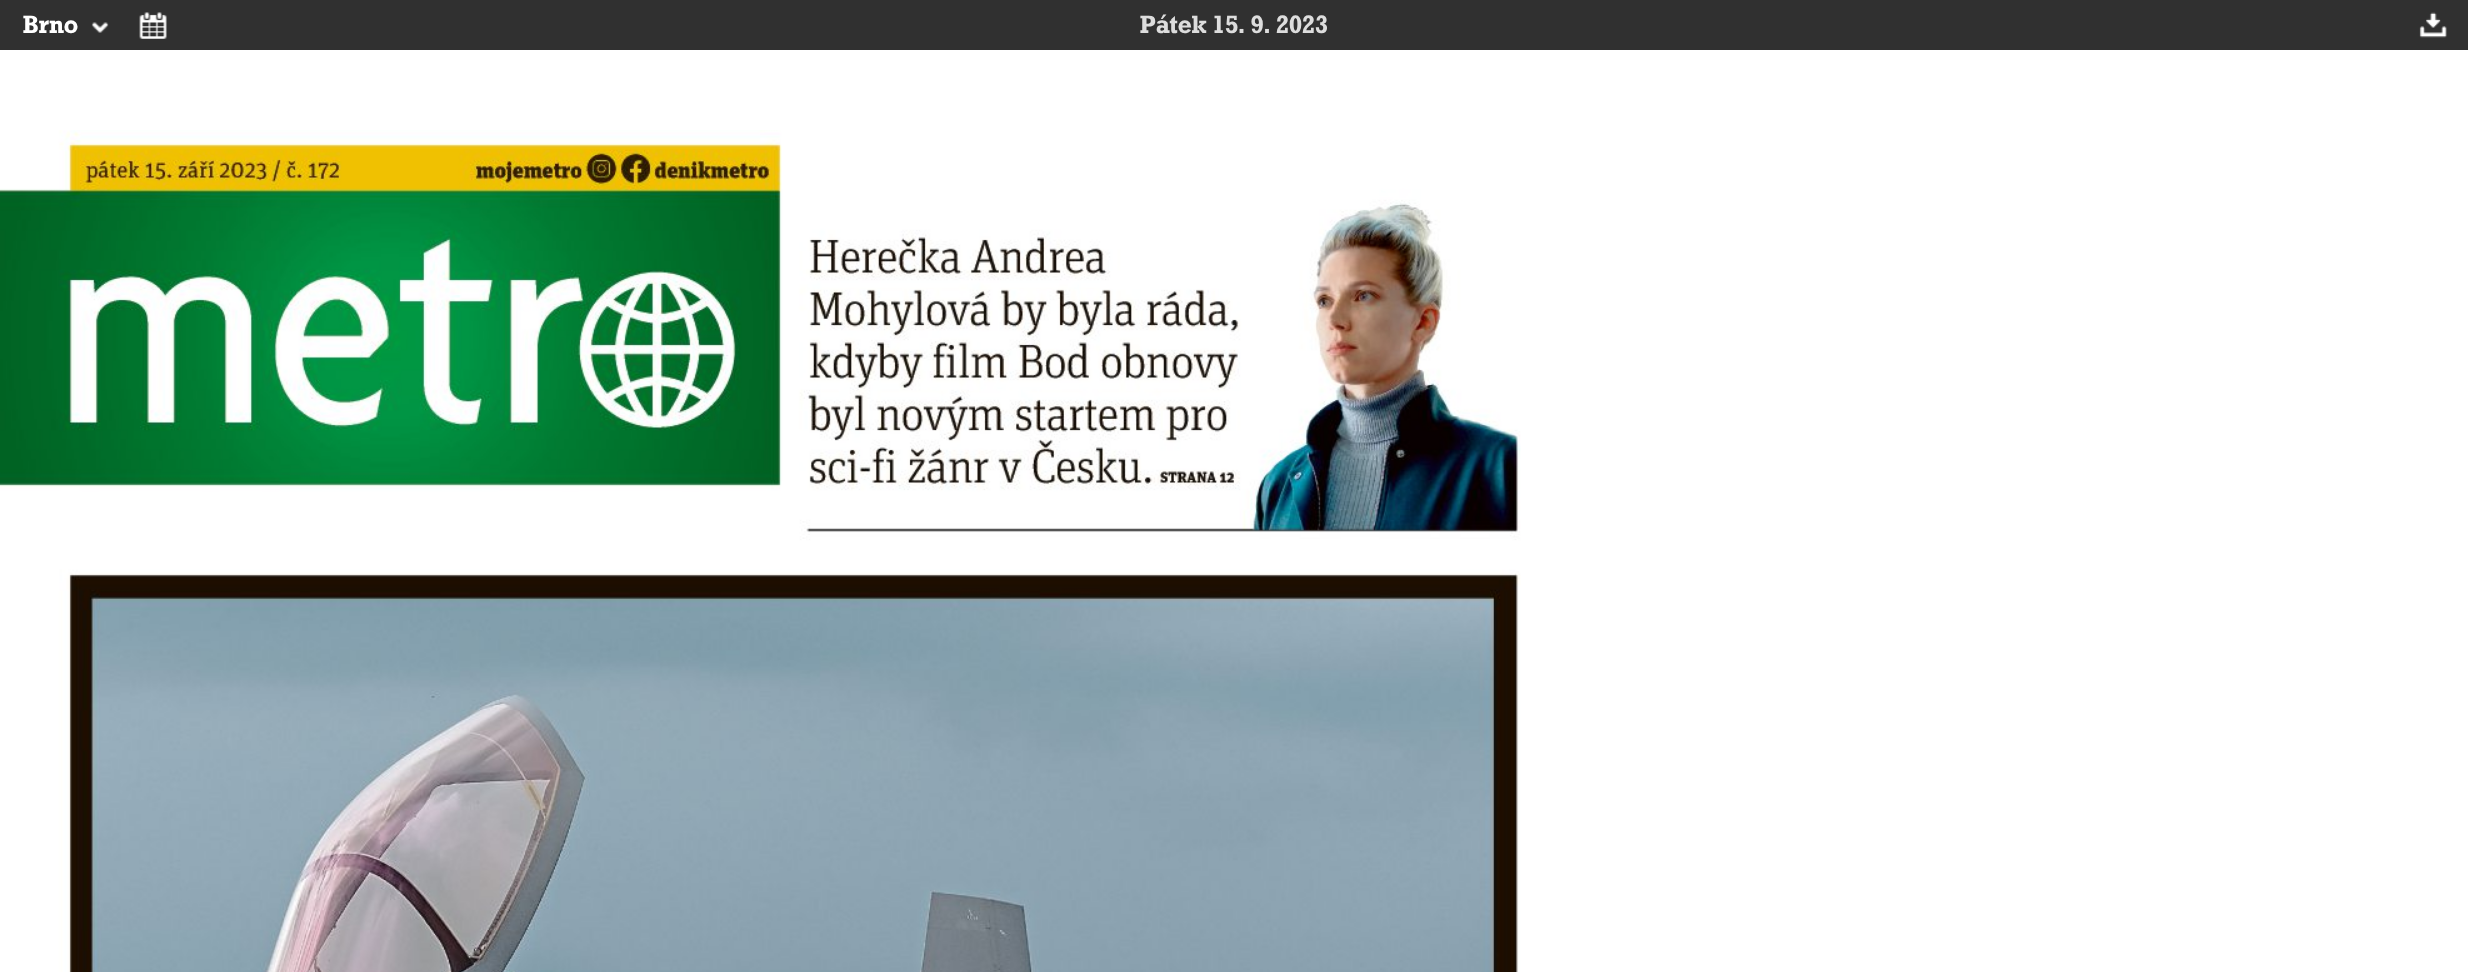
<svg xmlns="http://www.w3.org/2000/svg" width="2468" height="972">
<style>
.a{font:bold 25px 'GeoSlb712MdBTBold';fill:#fff}
.b{font:bold 25px 'GeoSlb712MdBTBold';fill:#ddd}
</style>
<rect width="100%" height="100%" fill="#fff"/>
<path fill="#303030" d="M0 0h2468v50H0z"/>
<image href="1.png" x="91" y="22" width="18" height="11"/>
<image href="2.png" x="139" y="12" width="28" height="27"/>
<image href="3.png" x="2419" y="12" width="28" height="26"/>
<image href="4.png" x="0" y="130" width="1521" height="842"/>
<text class="a" x="23" y="33">Brno</text>
<text class="b" x="1140" y="33">Pátek 15. 9. 2023</text>
</svg>
